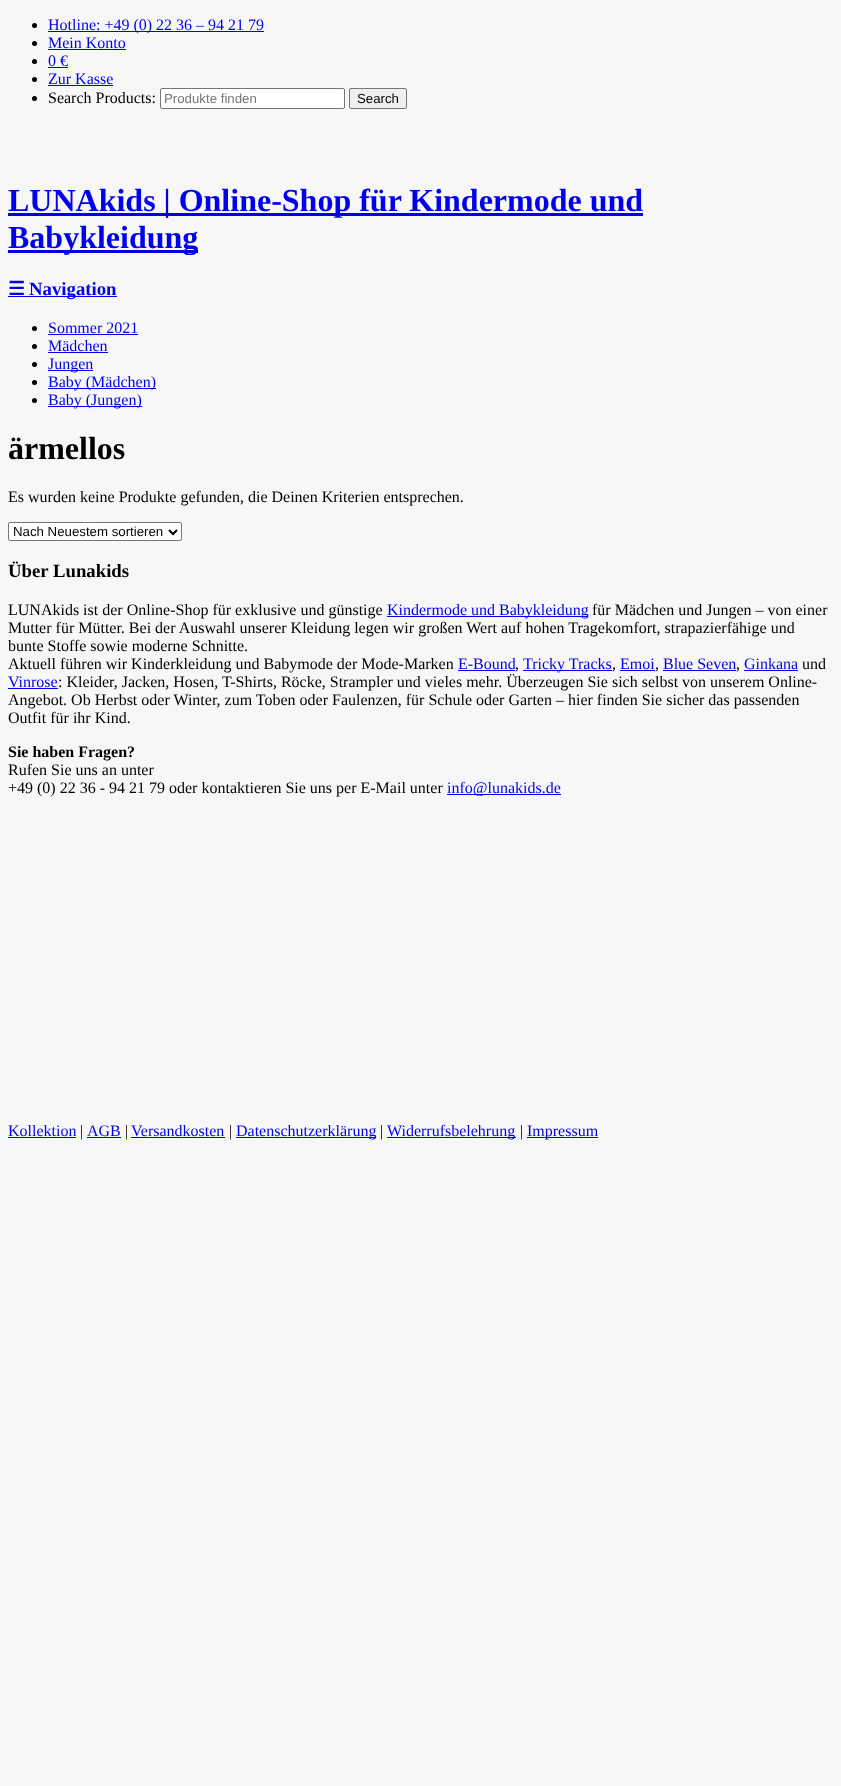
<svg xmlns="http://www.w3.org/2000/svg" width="841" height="1786">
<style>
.a{font:16px Liberation Serif;fill:#00e}
.b{font:16px Liberation Serif;fill:#000}
.c{font:13.25px Liberation Sans;fill:#757575}
.d{font:13.25px Liberation Sans;fill:#000}
.e{font:bold 32px Liberation Serif;fill:#00e}
.f{font:bold 18.75px DejaVu Sans;fill:#00e}
.g{font:bold 18.75px Liberation Serif;fill:#00e}
.h{font:bold 32px Liberation Serif;fill:#000}
.i{font:bold 18.75px Liberation Serif;fill:#000}
.j{font:bold 16px Liberation Serif;fill:#000}
</style>
<rect width="100%" height="100%" fill="#f7f7f7"/>
<circle fill="#000" cx="34.5" cy="25.5" r="2.5"/>
<path fill="#00e" d="M48 31h216v1H48z"/>
<circle fill="#000" cx="34.5" cy="43.5" r="2.5"/>
<path fill="#00e" d="M48 49h78v1H48z"/>
<circle fill="#000" cx="34.5" cy="61.5" r="2.5"/>
<path fill="#00e" d="M48 67h20v1H48z"/>
<circle fill="#000" cx="34.5" cy="79.5" r="2.5"/>
<path fill="#00e" d="M48 85h65v1H48z"/>
<circle fill="#000" cx="34.5" cy="98.5" r="2.5"/>
<rect fill="#fff" stroke="#767676" x="160.5" y="88.5" width="184" height="20" rx="1.5"/>
<rect fill="#efefef" stroke="#767676" x="349.5" y="88.5" width="57" height="20" rx="1.5"/>
<path fill="#00e" d="M8 213h635v3H8z"/>
<path fill="#00e" d="M8 250h190v3H8z"/>
<path fill="#00e" d="M8 296h109v1H8z"/>
<circle fill="#000" cx="34.5" cy="328.5" r="2.5"/>
<path fill="#00e" d="M48 334h90v1H48z"/>
<circle fill="#000" cx="34.5" cy="346.5" r="2.5"/>
<path fill="#00e" d="M48 352h60v1H48z"/>
<circle fill="#000" cx="34.5" cy="364.5" r="2.5"/>
<path fill="#00e" d="M48 370h45v1H48z"/>
<circle fill="#000" cx="34.5" cy="382.5" r="2.5"/>
<path fill="#00e" d="M48 388h108v1H48z"/>
<circle fill="#000" cx="34.5" cy="400.5" r="2.5"/>
<path fill="#00e" d="M48 406h94v1H48z"/>
<rect fill="#fff" stroke="#767676" x="8.5" y="522.5" width="173" height="18" rx="1.5"/>
<path fill="none" stroke="#000" stroke-width="2" d="M169 530l4 4l4-4"/>
<path fill="#00e" d="M387 616h201v1H387z"/>
<path fill="#00e" d="M458 670h57v1H458z"/>
<path fill="#00e" d="M523 670h89v1H523z"/>
<path fill="#00e" d="M620 670h35v1H620z"/>
<path fill="#00e" d="M663 670h73v1H663z"/>
<path fill="#00e" d="M744 670h54v1H744z"/>
<path fill="#00e" d="M8 688h50v1H8z"/>
<path fill="#00e" d="M447 794h114v1H447z"/>
<path fill="#00e" d="M8 1137h68v1H8z"/>
<path fill="#00e" d="M87 1137h34v1H87z"/>
<path fill="#00e" d="M131 1137h94v1H131z"/>
<path fill="#00e" d="M236 1137h140v1H236z"/>
<path fill="#00e" d="M387 1137h129v1H387z"/>
<path fill="#00e" d="M527 1137h71v1H527z"/>
<text class="a" x="48" y="30">Hotline: +49 (0) 22 36 – 94 21 79</text>
<text class="a" x="48" y="48">Mein Konto</text>
<text class="a" x="48" y="66">0 €</text>
<text class="a" x="48" y="84">Zur Kasse</text>
<text class="b" x="48" y="103">Search Products:</text>
<text class="c" x="164" y="103">Produkte finden</text>
<text class="d" x="357" y="103">Search</text>
<text class="e" x="8" y="211">LUNAkids | Online-Shop für Kindermode und</text>
<text class="e" x="8" y="248">Babykleidung</text>
<text class="f" x="8" y="295">☰</text>
<text class="g" x="29" y="295">Navigation</text>
<text class="a" x="48" y="333">Sommer 2021</text>
<text class="a" x="48" y="351">Mädchen</text>
<text class="a" x="48" y="369">Jungen</text>
<text class="a" x="48" y="387">Baby (Mädchen)</text>
<text class="a" x="48" y="405">Baby (Jungen)</text>
<text class="h" x="8" y="459">ärmellos</text>
<text class="b" x="8" y="502">Es wurden keine Produkte gefunden, die Deinen Kriterien entsprechen.</text>
<text class="d" x="13" y="536">Nach Neuestem sortieren</text>
<text class="i" x="8" y="577">Über Lunakids</text>
<text class="b" x="8" y="615">LUNAkids ist der Online-Shop für exklusive und günstige</text>
<text class="a" x="387" y="615">Kindermode und Babykleidung</text>
<text class="b" x="592" y="615">für Mädchen und Jungen – von einer</text>
<text class="b" x="8" y="633">Mutter für Mütter. Bei der Auswahl unserer Kleidung legen wir großen Wert auf hohen Tragekomfort, strapazierfähige und</text>
<text class="b" x="8" y="651">bunte Stoffe sowie moderne Schnitte.</text>
<text class="b" x="8" y="669">Aktuell führen wir Kinderkleidung und Babymode der Mode-Marken</text>
<text class="a" x="458" y="669">E-Bound</text>
<text class="b" x="515" y="669">,</text>
<text class="a" x="523" y="669">Tricky Tracks</text>
<text class="b" x="612" y="669">,</text>
<text class="a" x="620" y="669">Emoi</text>
<text class="b" x="655" y="669">,</text>
<text class="a" x="663" y="669">Blue Seven</text>
<text class="b" x="736" y="669">,</text>
<text class="a" x="744" y="669">Ginkana</text>
<text class="b" x="802" y="669">und</text>
<text class="a" x="8" y="687">Vinrose</text>
<text class="b" x="58" y="687">: Kleider, Jacken, Hosen, T-Shirts, Röcke, Strampler und vieles mehr. Überzeugen Sie sich selbst von unserem Online-</text>
<text class="b" x="8" y="705">Angebot. Ob Herbst oder Winter, zum Toben oder Faulenzen, für Schule oder Garten – hier finden Sie sicher das passenden</text>
<text class="b" x="8" y="723">Outfit für ihr Kind.</text>
<text class="j" x="8" y="757">Sie haben Fragen?</text>
<text class="b" x="8" y="775">Rufen Sie uns an unter</text>
<text class="b" x="8" y="793">+49 (0) 22 36 - 94 21 79 oder kontaktieren Sie uns per E-Mail unter</text>
<text class="a" x="447" y="793">info@lunakids.de</text>
<text class="a" x="8" y="1136">Kollektion</text>
<text class="b" x="80" y="1136">|</text>
<text class="a" x="87" y="1136">AGB</text>
<text class="b" x="125" y="1136">|</text>
<text class="a" x="131" y="1136">Versandkosten</text>
<text class="b" x="229" y="1136">|</text>
<text class="a" x="236" y="1136">Datenschutzerklärung</text>
<text class="b" x="380" y="1136">|</text>
<text class="a" x="387" y="1136">Widerrufsbelehrung</text>
<text class="b" x="520" y="1136">|</text>
<text class="a" x="527" y="1136">Impressum</text>
</svg>
